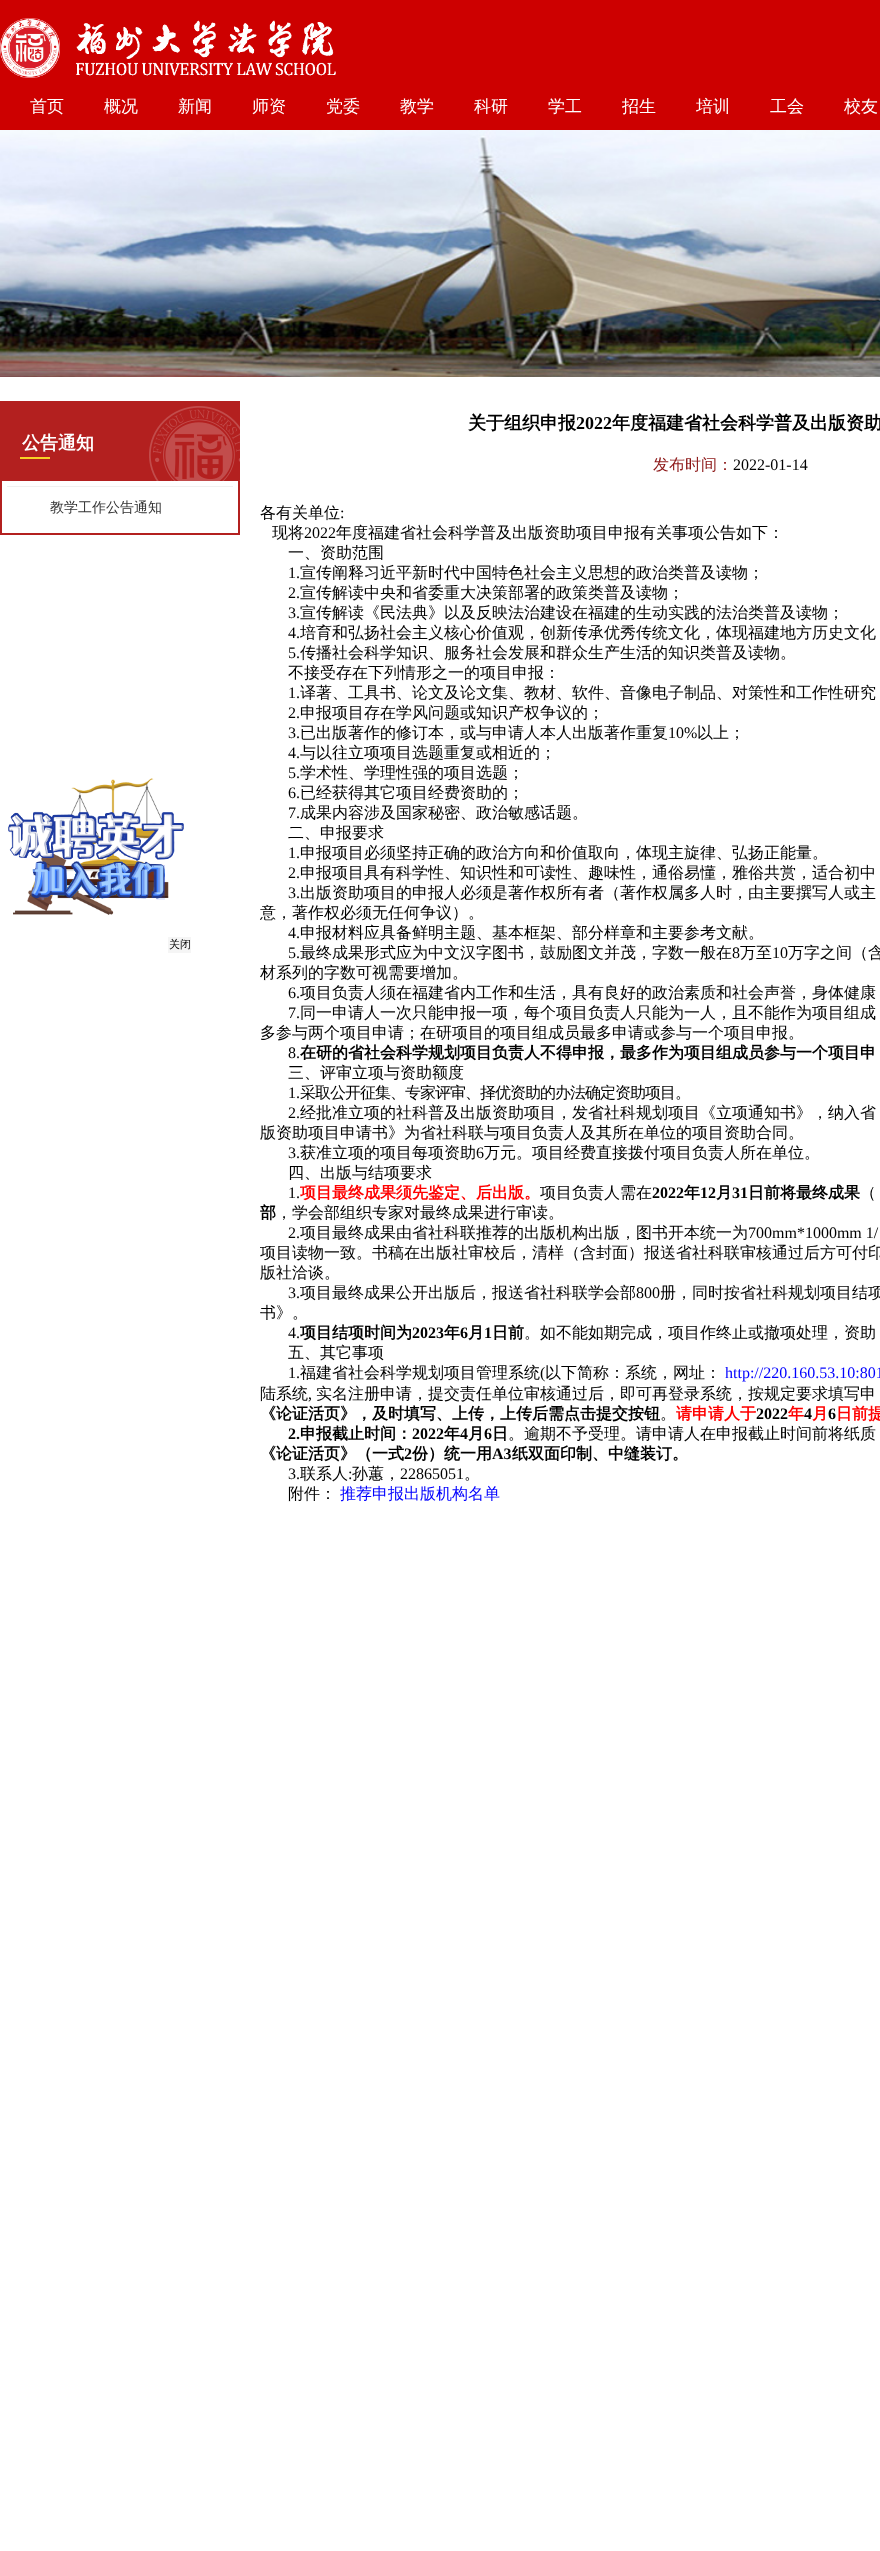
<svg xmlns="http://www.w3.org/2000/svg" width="880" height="2551">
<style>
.a{font:500 17px WenQuanYi Zen Hei;fill:#fff}
.b{font:500 11px WenQuanYi Zen Hei;fill:#000}
.c{font:bold 18px WenQuanYi Zen Hei;fill:#fff}
.d{font:500 14px WenQuanYi Zen Hei;fill:#333}
.e{font:bold 18px WenQuanYi Zen Hei;fill:#000}
.f{font:bold 18px Liberation Serif;fill:#000}
.g{font:500 16px WenQuanYi Zen Hei;fill:#8c1616}
.h{font:16px Liberation Serif;fill:#000}
.i{font:500 16px WenQuanYi Zen Hei;fill:#000}
.j{font:bold 16px WenQuanYi Zen Hei;fill:#000}
.k{font:500 16px WenQuanYi Zen Hei;letter-spacing:-1px;fill:#000}
.l{font:bold 16px WenQuanYi Zen Hei;fill:#f00}
.m{font:bold 16px Liberation Serif;fill:#000}
.n{font:16px Liberation Serif;fill:#00f}
.o{font:500 16px WenQuanYi Zen Hei;fill:#00f}
</style>
<rect width="100%" height="100%" fill="#fff"/>
<path fill="#cd0000" d="M0 0h880v130H0z"/>
<image href="1.png" x="0" y="18" width="60" height="60"/>
<image href="2.png" x="76" y="20" width="260" height="56"/>
<image href="3.png" x="8" y="778" width="176" height="137"/>
<path fill="#f5f5f5" d="M168 937h23v16H168z"/>
<image href="4.png" x="0" y="130" width="880" height="247"/>
<image href="5.png" x="0" y="401" width="240" height="80"/>
<path fill="#b3201f" d="M238 481h2v54H238z"/>
<path fill="#b3201f" d="M0 533h240v2H0z"/>
<path fill="#b3201f" d="M0 481h2v54H0z"/>
<path fill="#f0f0f0" d="M7 486h226v1H7z"/>
<text class="a" x="30" y="112">首页</text>
<text class="a" x="104" y="112">概况</text>
<text class="a" x="178" y="112">新闻</text>
<text class="a" x="252" y="112">师资</text>
<text class="a" x="326" y="112">党委</text>
<text class="a" x="400" y="112">教学</text>
<text class="a" x="474" y="112">科研</text>
<text class="a" x="548" y="112">学工</text>
<text class="a" x="622" y="112">招生</text>
<text class="a" x="696" y="112">培训</text>
<text class="a" x="770" y="112">工会</text>
<text class="a" x="844" y="112">校友</text>
<text class="b" x="169" y="948">关闭</text>
<text class="c" x="22" y="449">公告通知</text>
<text class="d" x="50" y="512">教学工作公告通知</text>
<text class="e" x="468" y="429">关于组织申报</text>
<text class="f" x="576" y="429">2022</text>
<text class="e" x="612" y="429">年度福建省社会科学普及出版资助</text>
<text class="g" x="653" y="470">发布时间：</text>
<text class="h" x="733" y="470">2022-01-14</text>
<text class="i" x="260" y="518">各有关单位</text>
<text class="h" x="340" y="518">:</text>
<text class="i" x="272" y="538">现将</text>
<text class="h" x="304" y="538">2022</text>
<text class="i" x="336" y="538">年度福建省社会科学普及出版资助项目申报有关事项公告如下：</text>
<text class="i" x="288" y="558">一、资助范围</text>
<text class="h" x="288" y="578">1.</text>
<text class="i" x="300" y="578">宣传阐释习近平新时代中国特色社会主义思想的政治类普及读物；</text>
<text class="h" x="288" y="598">2.</text>
<text class="i" x="300" y="598">宣传解读中央和省委重大决策部署的政策类普及读物；</text>
<text class="h" x="288" y="618">3.</text>
<text class="i" x="300" y="618">宣传解读《民法典》以及反映法治建设在福建的生动实践的法治类普及读物；</text>
<text class="h" x="288" y="638">4.</text>
<text class="i" x="300" y="638">培育和弘扬社会主义核心价值观，创新传承优秀传统文化，体现福建地方历史文化</text>
<text class="h" x="288" y="658">5.</text>
<text class="i" x="300" y="658">传播社会科学知识、服务社会发展和群众生产生活的知识类普及读物。</text>
<text class="i" x="288" y="678">不接受存在下列情形之一的项目申报：</text>
<text class="h" x="288" y="698">1.</text>
<text class="i" x="300" y="698">译著、工具书、论文及论文集、教材、软件、音像电子制品、对策性和工作性研究</text>
<text class="h" x="288" y="718">2.</text>
<text class="i" x="300" y="718">申报项目存在学风问题或知识产权争议的；</text>
<text class="h" x="288" y="738">3.</text>
<text class="i" x="300" y="738">已出版著作的修订本，或与申请人本人出版著作重复</text>
<text class="h" x="668" y="738">10%</text>
<text class="i" x="697" y="738">以上；</text>
<text class="h" x="288" y="758">4.</text>
<text class="i" x="300" y="758">与以往立项项目选题重复或相近的；</text>
<text class="h" x="288" y="778">5.</text>
<text class="i" x="300" y="778">学术性、学理性强的项目选题；</text>
<text class="h" x="288" y="798">6.</text>
<text class="i" x="300" y="798">已经获得其它项目经费资助的；</text>
<text class="h" x="288" y="818">7.</text>
<text class="i" x="300" y="818">成果内容涉及国家秘密、政治敏感话题。</text>
<text class="i" x="288" y="838">二、申报要求</text>
<text class="h" x="288" y="858">1.</text>
<text class="i" x="300" y="858">申报项目必须坚持正确的政治方向和价值取向，体现主旋律、弘扬正能量。</text>
<text class="h" x="288" y="878">2.</text>
<text class="i" x="300" y="878">申报项目具有科学性、知识性和可读性、趣味性，通俗易懂，雅俗共赏，适合初中</text>
<text class="h" x="288" y="898">3.</text>
<text class="i" x="300" y="898">出版资助项目的申报人必须是著作权所有者（著作权属多人时，由主要撰写人或主</text>
<text class="i" x="260" y="918">意，著作权必须无任何争议）。</text>
<text class="h" x="288" y="938">4.</text>
<text class="i" x="300" y="938">申报材料应具备鲜明主题、基本框架、部分样章和主要参考文献。</text>
<text class="h" x="288" y="958">5.</text>
<text class="i" x="300" y="958">最终成果形式应为中文汉字图书，鼓励图文并茂，字数一般在</text>
<text class="h" x="732" y="958">8</text>
<text class="i" x="740" y="958">万至</text>
<text class="h" x="772" y="958">10</text>
<text class="i" x="788" y="958">万字之间（含</text>
<text class="i" x="260" y="978">材系列的字数可视需要增加。</text>
<text class="h" x="288" y="998">6.</text>
<text class="i" x="300" y="998">项目负责人须在福建省内工作和生活，具有良好的政治素质和社会声誉，身体健康</text>
<text class="h" x="288" y="1018">7.</text>
<text class="i" x="300" y="1018">同一申请人一次只能申报一项，每个项目负责人只能为一人，且不能作为项目组成</text>
<text class="i" x="260" y="1038">多参与两个项目申请；在研项目的项目组成员最多申请或参与一个项目申报。</text>
<text class="h" x="288" y="1058">8.</text>
<text class="j" x="300" y="1058">在研的省社会科学规划项目负责人不得申报，最多作为项目组成员参与一个项目申</text>
<text class="i" x="288" y="1078">三、评审立项与资助额度</text>
<text class="h" x="288" y="1098">1.</text>
<text class="k" x="300" y="1098">采取公开征集、专家评审、择优资助的办法确定资助项目。</text>
<text class="h" x="288" y="1118">2.</text>
<text class="i" x="300" y="1118">经批准立项的社科普及出版资助项目，发省社科规划项目《立项通知书》，纳入省</text>
<text class="i" x="260" y="1138">版资助项目申请书》为省社科联与项目负责人及其所在单位的项目资助合同。</text>
<text class="h" x="288" y="1158">3.</text>
<text class="i" x="300" y="1158">获准立项的项目每项资助</text>
<text class="h" x="476" y="1158">6</text>
<text class="i" x="484" y="1158">万元。项目经费直接拨付项目负责人所在单位。</text>
<text class="i" x="288" y="1178">四、出版与结项要求</text>
<text class="h" x="288" y="1198">1.</text>
<text class="l" x="300" y="1198">项目最终成果须先鉴定、后出版。</text>
<text class="i" x="540" y="1198">项目负责人需在</text>
<text class="m" x="652" y="1198">2022</text>
<text class="j" x="684" y="1198">年</text>
<text class="m" x="700" y="1198">12</text>
<text class="j" x="716" y="1198">月</text>
<text class="m" x="732" y="1198">31</text>
<text class="j" x="748" y="1198">日前将最终成果</text>
<text class="i" x="860" y="1198">（</text>
<text class="j" x="260" y="1218">部</text>
<text class="i" x="276" y="1218">，学会部组织专家对最终成果进行审读。</text>
<text class="h" x="288" y="1238">2.</text>
<text class="i" x="300" y="1238">项目最终成果由省社科联推荐的出版机构出版，图书开本统一为</text>
<text class="h" x="748" y="1238">700mm*1000mm 1/</text>
<text class="i" x="260" y="1258">项目读物一致。书稿在出版社审校后，清样（含封面）报送省社科联审核通过后方可付印</text>
<text class="i" x="260" y="1278">版社洽谈。</text>
<text class="h" x="288" y="1298">3.</text>
<text class="i" x="300" y="1298">项目最终成果公开出版后，报送省社科联学会部</text>
<text class="h" x="636" y="1298">800</text>
<text class="i" x="660" y="1298">册，同时按省社科规划项目结项</text>
<text class="i" x="260" y="1318">书》。</text>
<text class="h" x="288" y="1338">4.</text>
<text class="j" x="300" y="1338">项目结项时间为</text>
<text class="m" x="412" y="1338">2023</text>
<text class="j" x="444" y="1338">年</text>
<text class="m" x="460" y="1338">6</text>
<text class="j" x="468" y="1338">月</text>
<text class="m" x="484" y="1338">1</text>
<text class="j" x="492" y="1338">日前</text>
<text class="i" x="524" y="1338">。如不能如期完成，项目作终止或撤项处理，资助</text>
<text class="i" x="288" y="1358">五、其它事项</text>
<text class="h" x="288" y="1378">1.</text>
<text class="i" x="300" y="1378">福建省社会科学规划项目管理系统</text>
<text class="h" x="540" y="1378">(</text>
<text class="i" x="545" y="1378">以下简称：系统，网址：</text>
<text class="n" x="725" y="1378">http://220.160.53.10:801</text>
<text class="i" x="260" y="1399">陆系统</text>
<text class="h" x="308" y="1399">,</text>
<text class="i" x="316" y="1399">实名注册申请，提交责任单位审核通过后，即可再登录系统，按规定要求填写申</text>
<text class="j" x="260" y="1419">《论证活页》，及时填写、上传，上传后需点击提交按钮</text>
<text class="i" x="660" y="1419">。</text>
<text class="l" x="676" y="1419">请申请人于</text>
<text class="m" x="756" y="1419">2022</text>
<text class="l" x="788" y="1419">年</text>
<text class="m" x="804" y="1419">4</text>
<text class="l" x="812" y="1419">月</text>
<text class="m" x="828" y="1419">6</text>
<text class="l" x="836" y="1419">日前提</text>
<text class="m" x="288" y="1439">2.</text>
<text class="j" x="300" y="1439">申报截止时间：</text>
<text class="m" x="412" y="1439">2022</text>
<text class="j" x="444" y="1439">年</text>
<text class="m" x="460" y="1439">4</text>
<text class="j" x="468" y="1439">月</text>
<text class="m" x="484" y="1439">6</text>
<text class="j" x="492" y="1439">日</text>
<text class="i" x="508" y="1439">。逾期不予受理。请申请人在申报截止时间前将纸质</text>
<text class="j" x="260" y="1459">《论证活页》（一式</text>
<text class="m" x="404" y="1459">2</text>
<text class="j" x="412" y="1459">份）统一用</text>
<text class="m" x="492" y="1459">A3</text>
<text class="j" x="512" y="1459">纸双面印制、中缝装订。</text>
<text class="h" x="288" y="1479">3.</text>
<text class="i" x="300" y="1479">联系人</text>
<text class="h" x="348" y="1479">:</text>
<text class="i" x="352" y="1479">孙蕙，</text>
<text class="h" x="400" y="1479">22865051</text>
<text class="i" x="464" y="1479">。</text>
<text class="i" x="288" y="1499">附件：</text>
<text class="o" x="340" y="1499">推荐申报出版机构名单</text>
</svg>
